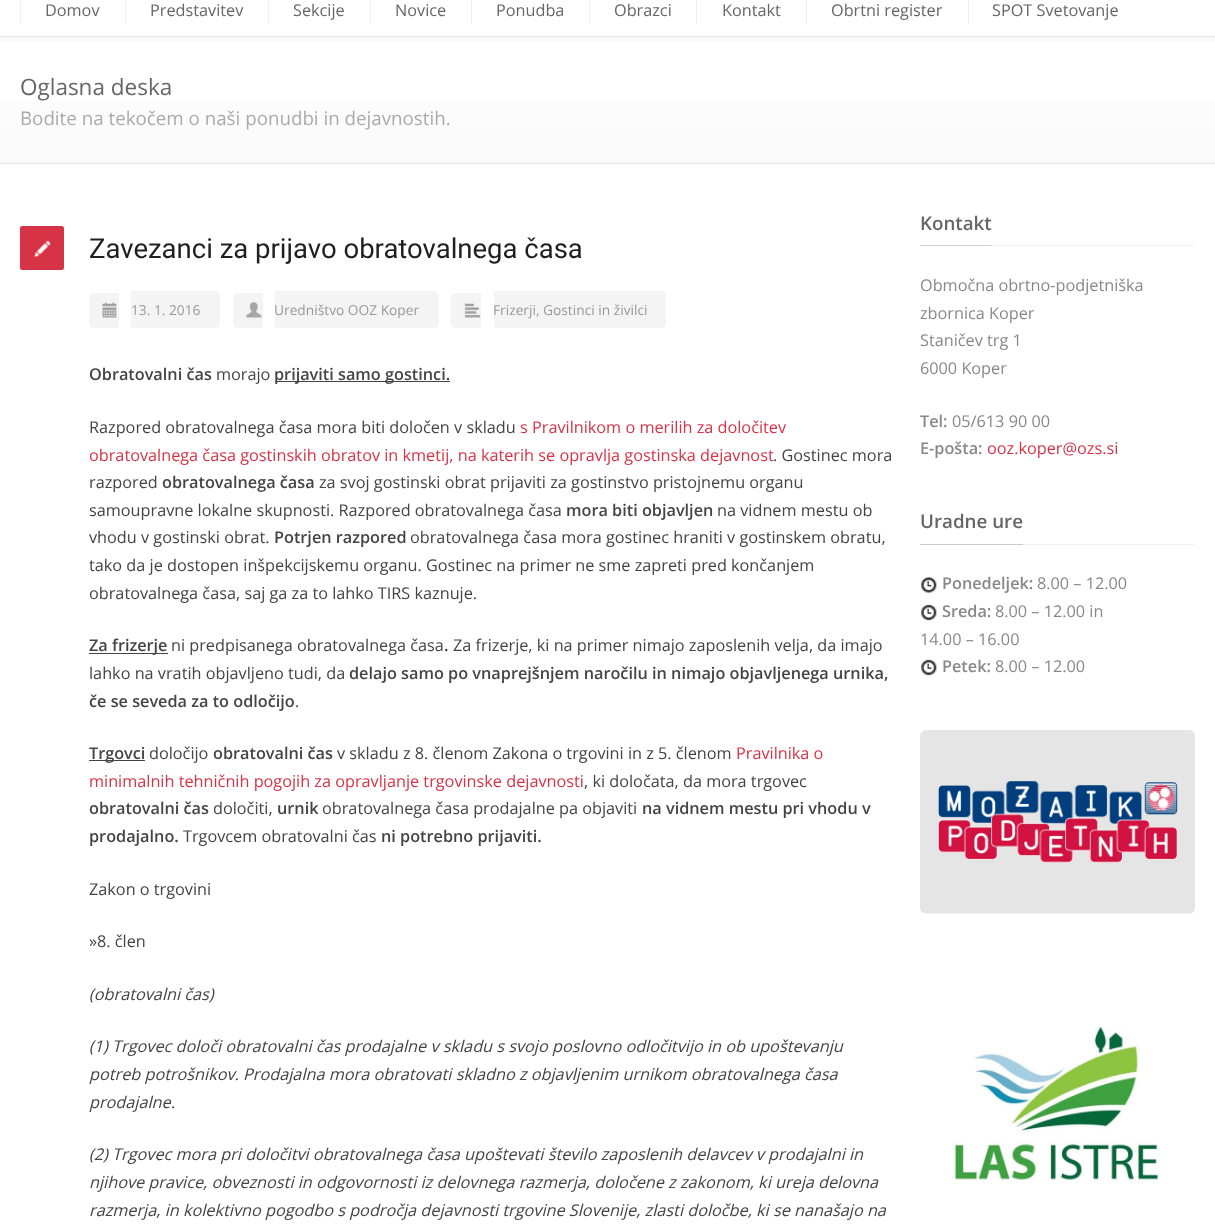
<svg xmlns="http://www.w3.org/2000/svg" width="1215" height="1224">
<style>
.a{font:16.25px Open Sans;fill:#666}
.b{font:22.5px Open Sans;fill:#666}
.c{font:18.75px Open Sans;fill:#aaa}
.d{font:27.5px Roboto;fill:#1f1f1f}
.e{font:13.75px Open Sans;fill:#999}
.f{font:600 16.25px Open Sans;fill:#444}
.g{font:16.25px Open Sans;fill:#444}
.h{font:16.25px Open Sans;fill:#d63346}
.i{font:italic 16.25px Open Sans;fill:#444}
.j{font:600 18.75px Open Sans;fill:#666}
.k{font:16.25px Open Sans;fill:#888}
.l{font:600 16.25px Open Sans;fill:#888}
</style>
<defs>
<linearGradient id="g1" gradientUnits="userSpaceOnUse" x1="608" y1="38" x2="608" y2="-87"><stop offset="0" stop-color="#fafafa"/><stop offset="1" stop-color="#fff"/></linearGradient>
<linearGradient id="g2" gradientUnits="userSpaceOnUse" x1="608" y1="163" x2="608" y2="38"><stop offset="0" stop-color="#fafafa"/><stop offset="1" stop-color="#fff"/></linearGradient>
</defs>
<rect width="100%" height="100%" fill="#fff"/>
<path fill="#efefef" d="M20 0h1v24H20z"/>
<path fill="#efefef" d="M125 0h1v24H125z"/>
<path fill="#efefef" d="M268 0h1v24H268z"/>
<path fill="#efefef" d="M370 0h1v24H370z"/>
<path fill="#efefef" d="M471 0h1v24H471z"/>
<path fill="#efefef" d="M589 0h1v24H589z"/>
<path fill="#efefef" d="M696 0h1v24H696z"/>
<path fill="#efefef" d="M806 0h1v24H806z"/>
<path fill="#efefef" d="M968 0h1v24H968z"/>
<path fill="url(#g1)" d="M0 37h1215v1H0z"/>
<path fill="url(#g2)" d="M0 101h1215v62H0z"/>
<path fill="#fafafa" d="M0 38h1215v4H0z"/>
<path fill="#e4e4e4" d="M0 36h1215v1H0z"/>
<path fill="#e4e4e4" d="M0 163h1215v1H0z"/>
<rect fill="#d63346" x="20" y="226" width="44" height="44" rx="2.5"/>
<image href="1.png" x="33" y="240" width="18" height="18"/>
<path fill="#f4f4f4" d="M93 293h26v35h-26c-2 0-4-2-4-4v-27c0-2 2-4 4-4z"/>
<path fill="#f4f4f4" d="M131 291h85c2 0 4 2 4 4v29c0 2-2 4-4 4h-85z"/>
<image href="2.png" x="102" y="302" width="15" height="16"/>
<path fill="#f4f4f4" d="M237 293h26v35h-26c-2 0-4-2-4-4v-27c0-2 2-4 4-4z"/>
<path fill="#f4f4f4" d="M275 291h160c2 0 4 2 4 4v29c0 2-2 4-4 4h-160z"/>
<image href="3.png" x="246" y="302" width="16" height="16"/>
<path fill="#f4f4f4" d="M455 293h26v35h-26c-2 0-4-2-4-4v-27c0-2 2-4 4-4z"/>
<path fill="#f4f4f4" d="M494 291h50v37H494z"/>
<path fill="#f4f4f4" d="M544 291h118c2 0 4 2 4 4v29c0 2-2 4-4 4h-118z"/>
<image href="4.png" x="464" y="303" width="17" height="15"/>
<path fill="#444" d="M275 381h175v1H275z"/>
<path fill="#444" d="M89 653h79v1H89z"/>
<path fill="#444" d="M89 760h56v1H89z"/>
<path fill="#f1f1f1" d="M991 245h204v1H991z"/>
<path fill="#ccc" d="M920 245h71v1H920z"/>
<path fill="#f1f1f1" d="M1023 544h172v1H1023z"/>
<path fill="#ccc" d="M920 544h103v1H920z"/>
<image href="5.png" x="921" y="577" width="16" height="16"/>
<image href="6.png" x="921" y="604" width="16" height="17"/>
<image href="6.png" x="921" y="659" width="16" height="17"/>
<image href="7.png" x="920" y="730" width="275" height="184"/>
<image href="8.png" x="951" y="1026" width="208" height="158"/>
<text class="a" x="45" y="16">Domov</text>
<text class="a" x="150" y="16">Predstavitev</text>
<text class="a" x="293" y="16">Sekcije</text>
<text class="a" x="395" y="16">Novice</text>
<text class="a" x="496" y="16">Ponudba</text>
<text class="a" x="614" y="16">Obrazci</text>
<text class="a" x="722" y="16">Kontakt</text>
<text class="a" x="831" y="16">Obrtni register</text>
<text class="a" x="992" y="16">SPOT Svetovanje</text>
<text class="b" x="20" y="95">Oglasna deska</text>
<text class="c" x="20" y="125">Bodite na tekočem o naši ponudbi in dejavnostih.</text>
<text class="d" x="89" y="258">Zavezanci za prijavo obratovalnega časa</text>
<text class="e" x="131" y="315">13. 1. 2016</text>
<text class="e" x="274" y="315">Uredništvo OOZ Koper</text>
<text class="e" x="493" y="315">Frizerji, Gostinci in živilci</text>
<text class="f" x="89" y="380">Obratovalni čas</text>
<text class="g" x="216" y="380">morajo</text>
<text class="f" x="274" y="380">prijaviti samo gostinci.</text>
<text class="g" x="89" y="433">Razpored obratovalnega časa mora biti določen v skladu</text>
<text class="h" x="520" y="433">s Pravilnikom o merilih za določitev</text>
<text class="h" x="89" y="461">obratovalnega časa gostinskih obratov in kmetij, na katerih se opravlja gostinska dejavnost</text>
<text class="g" x="773" y="461">. Gostinec mora</text>
<text class="g" x="89" y="488">razpored</text>
<text class="f" x="162" y="488">obratovalnega časa</text>
<text class="g" x="319" y="488">za svoj gostinski obrat prijaviti za gostinstvo pristojnemu organu</text>
<text class="g" x="89" y="516">samoupravne lokalne skupnosti. Razpored obratovalnega časa</text>
<text class="f" x="566" y="516">mora biti objavljen</text>
<text class="g" x="717" y="516">na vidnem mestu ob</text>
<text class="g" x="89" y="543">vhodu v gostinski obrat.</text>
<text class="f" x="274" y="543">Potrjen razpored</text>
<text class="g" x="410" y="543">obratovalnega časa mora gostinec hraniti v gostinskem obratu,</text>
<text class="g" x="89" y="571">tako da je dostopen inšpekcijskemu organu. Gostinec na primer ne sme zapreti pred končanjem</text>
<text class="g" x="89" y="599">obratovalnega časa, saj ga za to lahko TIRS kaznuje.</text>
<text class="f" x="89" y="651">Za frizerje</text>
<text class="g" x="171" y="651">ni predpisanega obratovalnega časa</text>
<text class="f" x="444" y="651">.</text>
<text class="g" x="453" y="651">Za frizerje, ki na primer nimajo zaposlenih velja, da imajo</text>
<text class="g" x="89" y="679">lahko na vratih objavljeno tudi, da</text>
<text class="f" x="349" y="679">delajo samo po vnaprejšnjem naročilu in nimajo objavljenega urnika,</text>
<text class="f" x="89" y="707">če se seveda za to odločijo</text>
<text class="g" x="295" y="707">.</text>
<text class="f" x="89" y="759">Trgovci</text>
<text class="g" x="149" y="759">določijo</text>
<text class="f" x="213" y="759">obratovalni čas</text>
<text class="g" x="337" y="759">v skladu z 8. členom Zakona o trgovini in z 5. členom</text>
<text class="h" x="736" y="759">Pravilnika o</text>
<text class="h" x="89" y="787">minimalnih tehničnih pogojih za opravljanje trgovinske dejavnosti</text>
<text class="g" x="584" y="787">, ki določata, da mora trgovec</text>
<text class="f" x="89" y="814">obratovalni čas</text>
<text class="g" x="213" y="814">določiti,</text>
<text class="f" x="277" y="814">urnik</text>
<text class="g" x="322" y="814">obratovalnega časa prodajalne pa objaviti</text>
<text class="f" x="642" y="814">na vidnem mestu pri vhodu v</text>
<text class="f" x="89" y="842">prodajalno.</text>
<text class="g" x="183" y="842">Trgovcem obratovalni čas</text>
<text class="f" x="381" y="842">ni potrebno prijaviti.</text>
<text class="g" x="89" y="895">Zakon o trgovini</text>
<text class="g" x="89" y="947">»8. člen</text>
<text class="i" x="89" y="1000">(obratovalni čas)</text>
<text class="i" x="89" y="1052">(1) Trgovec določi obratovalni čas prodajalne v skladu s svojo poslovno odločitvijo in ob upoštevanju</text>
<text class="i" x="89" y="1080">potreb potrošnikov. Prodajalna mora obratovati skladno z objavljenim urnikom obratovalnega časa</text>
<text class="i" x="89" y="1108">prodajalne.</text>
<text class="i" x="89" y="1160">(2) Trgovec mora pri določitvi obratovalnega časa upoštevati število zaposlenih delavcev v prodajalni in</text>
<text class="i" x="89" y="1188">njihove pravice, obveznosti in odgovornosti iz delovnega razmerja, določene z zakonom, ki ureja delovna</text>
<text class="i" x="89" y="1216">razmerja, in kolektivno pogodbo s področja dejavnosti trgovine Slovenije, zlasti določbe, ki se nanašajo na</text>
<text class="j" x="920" y="230">Kontakt</text>
<text class="k" x="920" y="291">Območna obrtno-podjetniška</text>
<text class="k" x="920" y="319">zbornica Koper</text>
<text class="k" x="920" y="346">Staničev trg 1</text>
<text class="k" x="920" y="374">6000 Koper</text>
<text class="l" x="920" y="427">Tel:</text>
<text class="k" x="952" y="427">05/613 90 00</text>
<text class="l" x="920" y="454">E-pošta:</text>
<text class="h" x="987" y="454">ooz.koper@ozs.si</text>
<text class="j" x="920" y="528">Uradne ure</text>
<text class="l" x="942" y="589">Ponedeljek:</text>
<text class="k" x="1037" y="589">8.00 – 12.00</text>
<text class="l" x="942" y="617">Sreda:</text>
<text class="k" x="995" y="617">8.00 – 12.00 in</text>
<text class="k" x="920" y="645">14.00 – 16.00</text>
<text class="l" x="942" y="672">Petek:</text>
<text class="k" x="995" y="672">8.00 – 12.00</text>
</svg>
